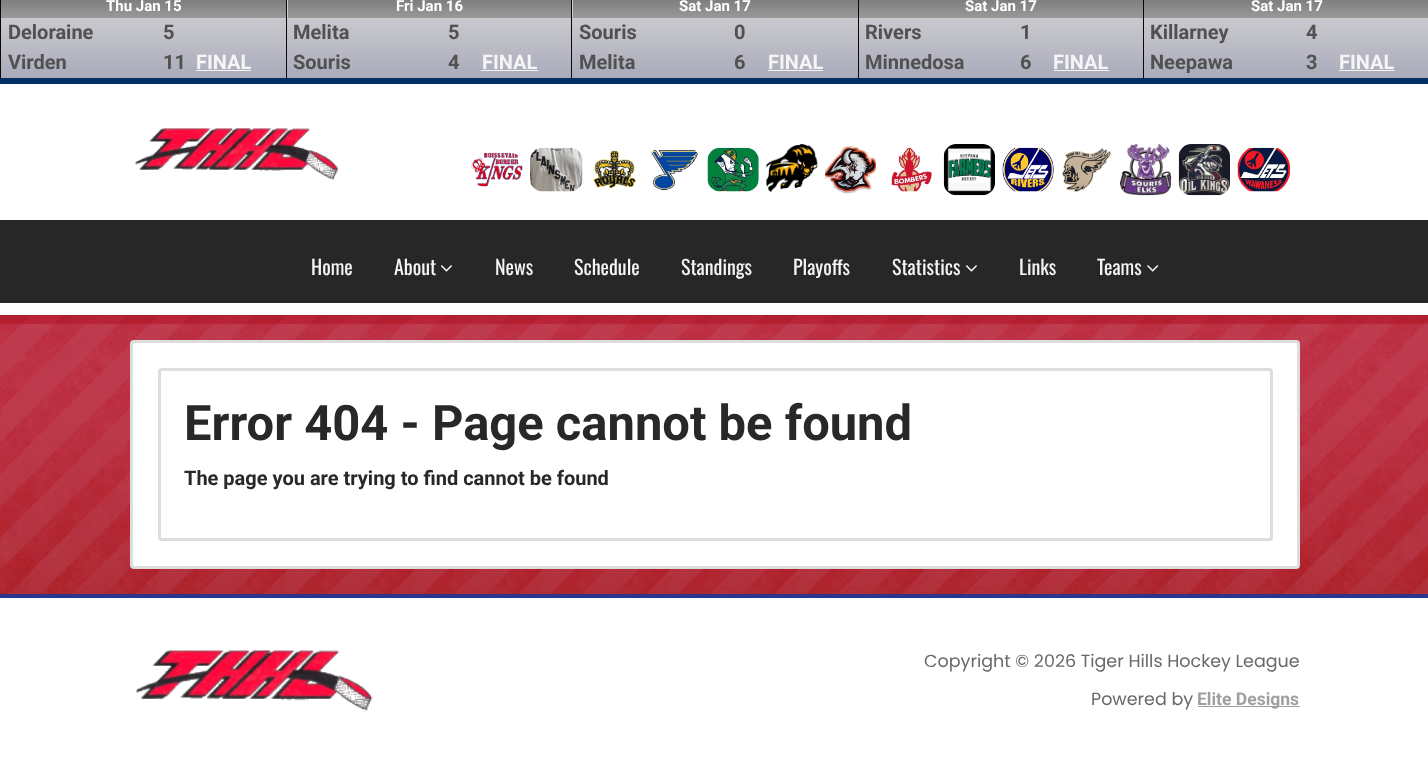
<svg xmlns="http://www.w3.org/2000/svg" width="1428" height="765">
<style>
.a{font:bold 15px Roboto;fill:#fff}
.b{font:bold 20px Roboto;fill:#515151}
.c{font:bold 20px Roboto;fill:#f5f5f5}
.d{font:20px Oswald;fill:#f5f5f5}
.e{font:bold 48.9px Roboto;fill:#282828}
.f{font:bold 20px Roboto;fill:#282828}
.g{font:17.5px Poppins;fill:#696969}
.h{font:bold 17.5px Roboto;fill:#9f9f9f}
</style>
<defs>
<linearGradient id="g1" gradientUnits="userSpaceOnUse" x1="144" y1="-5" x2="144" y2="78"><stop offset="0" stop-color="#d5d5d5"/><stop offset="1" stop-color="#aaabbb"/></linearGradient>
<linearGradient id="g2" gradientUnits="userSpaceOnUse" x1="144" y1="-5" x2="144" y2="18"><stop offset="0" stop-color="#777"/><stop offset="1" stop-color="#999"/></linearGradient>
<linearGradient id="g3" gradientUnits="userSpaceOnUse" x1="429" y1="-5" x2="429" y2="78"><stop offset="0" stop-color="#d5d5d5"/><stop offset="1" stop-color="#aaabbb"/></linearGradient>
<linearGradient id="g4" gradientUnits="userSpaceOnUse" x1="429" y1="-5" x2="429" y2="18"><stop offset="0" stop-color="#777"/><stop offset="1" stop-color="#999"/></linearGradient>
<linearGradient id="g5" gradientUnits="userSpaceOnUse" x1="715" y1="-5" x2="715" y2="78"><stop offset="0" stop-color="#d5d5d5"/><stop offset="1" stop-color="#aaabbb"/></linearGradient>
<linearGradient id="g6" gradientUnits="userSpaceOnUse" x1="715" y1="-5" x2="715" y2="18"><stop offset="0" stop-color="#777"/><stop offset="1" stop-color="#999"/></linearGradient>
<linearGradient id="g7" gradientUnits="userSpaceOnUse" x1="1001" y1="-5" x2="1001" y2="78"><stop offset="0" stop-color="#d5d5d5"/><stop offset="1" stop-color="#aaabbb"/></linearGradient>
<linearGradient id="g8" gradientUnits="userSpaceOnUse" x1="1001" y1="-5" x2="1001" y2="18"><stop offset="0" stop-color="#777"/><stop offset="1" stop-color="#999"/></linearGradient>
<linearGradient id="g9" gradientUnits="userSpaceOnUse" x1="1286" y1="-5" x2="1286" y2="78"><stop offset="0" stop-color="#d5d5d5"/><stop offset="1" stop-color="#aaabbb"/></linearGradient>
<linearGradient id="g10" gradientUnits="userSpaceOnUse" x1="1286" y1="-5" x2="1286" y2="18"><stop offset="0" stop-color="#777"/><stop offset="1" stop-color="#999"/></linearGradient>
</defs>
<rect width="100%" height="100%" fill="#fff"/>
<path fill="#002e65" d="M0 78h1428v6H0z"/>
<path fill="url(#g1)" d="M1 18h285v60H1z"/>
<path fill="#090909" d="M0 0h1v78H0z"/>
<path fill="url(#g2)" d="M1 0h285v18H1z"/>
<path fill="#f5f5f5" d="M196 70h55v1H196z"/>
<path fill="url(#g3)" d="M287 0h284v78H287z"/>
<path fill="#090909" d="M286 0h1v78H286z"/>
<path fill="url(#g4)" d="M288 0h283v18H288z"/>
<path fill="#f5f5f5" d="M481 70h57v1H481z"/>
<path fill="url(#g5)" d="M572 0h286v78H572z"/>
<path fill="#090909" d="M571 0h1v78H571z"/>
<path fill="url(#g6)" d="M573 0h285v18H573z"/>
<path fill="#f5f5f5" d="M768 70h55v1H768z"/>
<path fill="url(#g7)" d="M859 18h284v60H859z"/>
<path fill="#090909" d="M858 0h1v78H858z"/>
<path fill="url(#g8)" d="M859 0h284v18H859z"/>
<path fill="#f5f5f5" d="M1054 70h55v1H1054z"/>
<path fill="url(#g9)" d="M1144 18h284v60H1144z"/>
<path fill="#090909" d="M1143 0h1v78H1143z"/>
<path fill="url(#g10)" d="M1144 0h284v18H1144z"/>
<path fill="#f5f5f5" d="M1339 70h56v1H1339z"/>
<image href="1.png" x="135" y="128" width="204" height="52"/>
<image href="2.png" x="471" y="152" width="52" height="35"/>
<image href="3.png" x="530" y="147" width="53" height="45"/>
<image href="4.png" x="593" y="150" width="44" height="39"/>
<image href="5.png" x="651" y="150" width="47" height="41"/>
<image href="6.png" x="707" y="147" width="52" height="45"/>
<image href="7.png" x="766" y="144" width="52" height="48"/>
<image href="8.png" x="825" y="145" width="52" height="49"/>
<image href="9.png" x="891" y="147" width="41" height="45"/>
<image href="10.png" x="943" y="144" width="52" height="52"/>
<image href="11.png" x="1002" y="147" width="52" height="45"/>
<image href="12.png" x="1062" y="147" width="49" height="45"/>
<image href="13.png" x="1120" y="144" width="52" height="52"/>
<image href="14.png" x="1178" y="144" width="52" height="52"/>
<image href="15.png" x="1237" y="147" width="53" height="45"/>
<path fill="#272727" d="M0 220h1428v83H0z"/>
<image href="16.png" x="440" y="265" width="12" height="7"/>
<image href="16.png" x="965" y="265" width="12" height="7"/>
<image href="17.png" x="1147" y="265" width="12" height="7"/>
<path fill="#84220f" d="M0 315h1428v279H0z"/>
<image href="18.png" x="0" y="315" width="1428" height="279"/>
<rect fill="#fff" stroke="#ddd" stroke-width="3" x="131.5" y="341.5" width="1167" height="226" rx="2.5"/>
<rect fill="none" stroke="#ddd" stroke-width="3" x="159.5" y="369.5" width="1112" height="170" rx="2.5"/>
<path fill="#2a368c" d="M0 594h1428v4H0z"/>
<image href="19.png" x="136" y="650" width="237" height="61"/>
<path fill="#9f9f9f" d="M1198 706h102v1H1198z"/>
<text class="a" x="106" y="11">Thu Jan 15</text>
<text class="b" x="8" y="39">Deloraine</text>
<text class="b" x="8" y="69">Virden</text>
<text class="b" x="163" y="39">5</text>
<text class="b" x="163" y="69">11</text>
<text class="c" x="196" y="69">FINAL</text>
<text class="a" x="396" y="11">Fri Jan 16</text>
<text class="b" x="293" y="39">Melita</text>
<text class="b" x="293" y="69">Souris</text>
<text class="b" x="448" y="39">5</text>
<text class="b" x="448" y="69">4</text>
<text class="c" x="482" y="69">FINAL</text>
<text class="a" x="679" y="11">Sat Jan 17</text>
<text class="b" x="579" y="39">Souris</text>
<text class="b" x="579" y="69">Melita</text>
<text class="b" x="734" y="39">0</text>
<text class="b" x="734" y="69">6</text>
<text class="c" x="768" y="69">FINAL</text>
<text class="a" x="965" y="11">Sat Jan 17</text>
<text class="b" x="865" y="39">Rivers</text>
<text class="b" x="865" y="69">Minnedosa</text>
<text class="b" x="1020" y="39">1</text>
<text class="b" x="1020" y="69">6</text>
<text class="c" x="1053" y="69">FINAL</text>
<text class="a" x="1251" y="11">Sat Jan 17</text>
<text class="b" x="1150" y="39">Killarney</text>
<text class="b" x="1150" y="69">Neepawa</text>
<text class="b" x="1306" y="39">4</text>
<text class="b" x="1306" y="69">3</text>
<text class="c" x="1339" y="69">FINAL</text>
<text class="d" x="311" y="275">Home</text>
<text class="d" x="394" y="275">About</text>
<text class="d" x="495" y="275">News</text>
<text class="d" x="574" y="275">Schedule</text>
<text class="d" x="681" y="275">Standings</text>
<text class="d" x="793" y="275">Playoffs</text>
<text class="d" x="892" y="275">Statistics</text>
<text class="d" x="1019" y="275">Links</text>
<text class="d" x="1097" y="275">Teams</text>
<text class="e" x="184" y="440">Error 404 - Page cannot be found</text>
<text class="f" x="184" y="485">The page you are trying to find cannot be found</text>
<text class="g" x="924" y="667">Copyright © 2026 Tiger Hills Hockey League</text>
<text class="g" x="1091" y="705">Powered by</text>
<text class="h" x="1197" y="705">Elite Designs</text>
</svg>
